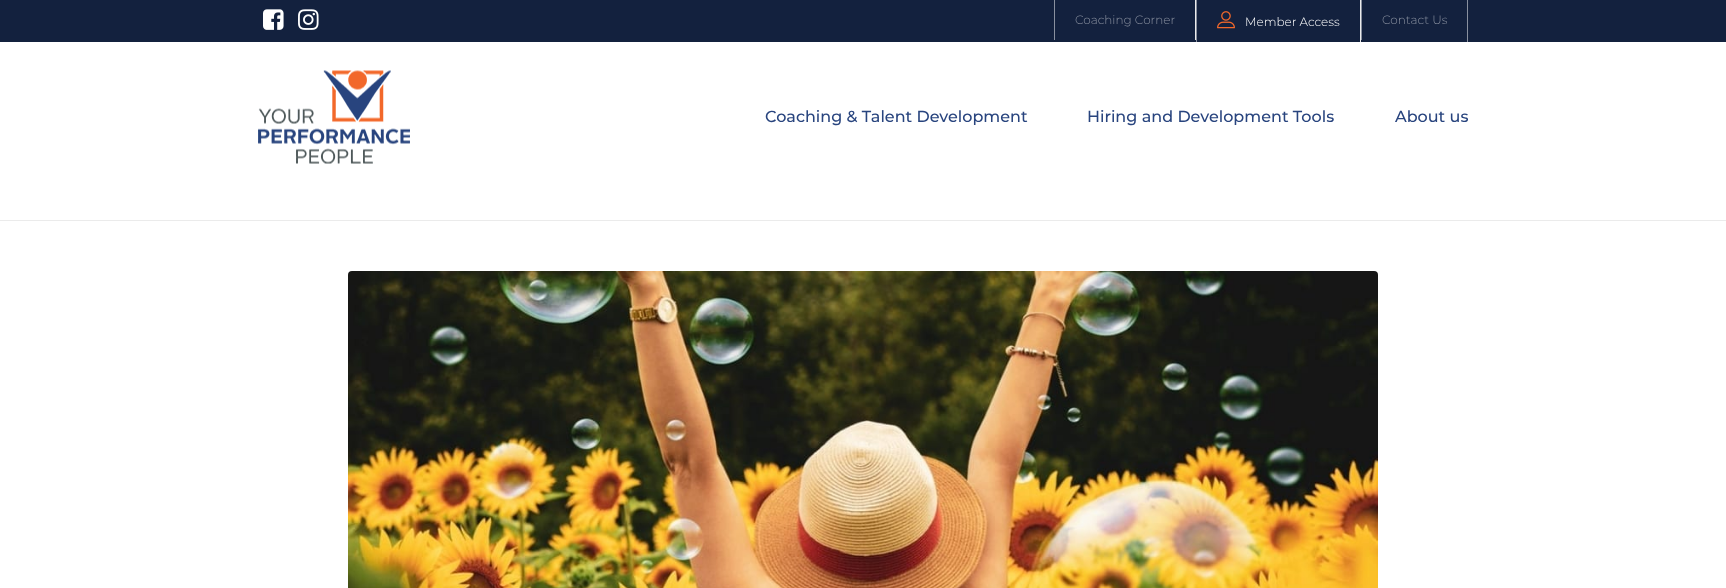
<svg xmlns="http://www.w3.org/2000/svg" width="1726" height="588">
<style>
.a{font:300 12px Montserrat;fill:#89909f}
.b{font:300 12px Montserrat;fill:#fff}
.c{font:500 16px Montserrat;fill:#28447e}
</style>
<rect width="100%" height="100%" fill="#fff"/>
<path fill="#13213e" d="M0 0h1726v42H0z"/>
<image href="1.png" x="263" y="9" width="21" height="21"/>
<image href="2.png" x="298" y="9" width="21" height="21"/>
<path fill="#89909f" d="M1467 0h1v42H1467z"/>
<path fill="#ebebeb" d="M1195 0h1v40H1195z"/>
<path fill="#89909f" d="M1054 0h1v40H1054z"/>
<path fill="#ebebeb" d="M1360 0h1v42H1360z"/>
<path fill="#89909f" d="M1196 0h1v42H1196z"/>
<image href="3.png" x="1217" y="11" width="18" height="18"/>
<path fill="#89909f" d="M1361 0h1v40H1361z"/>
<image href="4.png" x="258" y="70" width="152" height="94"/>
<path fill="#ebebeb" d="M0 220h1726v1H0z"/>
<image href="5.png" x="348" y="271" width="1030" height="317"/>
<text class="a" x="1075" y="24">Coaching Corner</text>
<text class="b" x="1245" y="26">Member Access</text>
<text class="a" x="1382" y="24">Contact Us</text>
<text class="c" x="765" y="122">Coaching &amp; Talent Development</text>
<text class="c" x="1087" y="122">Hiring and Development Tools</text>
<text class="c" x="1395" y="122">About us</text>
</svg>
